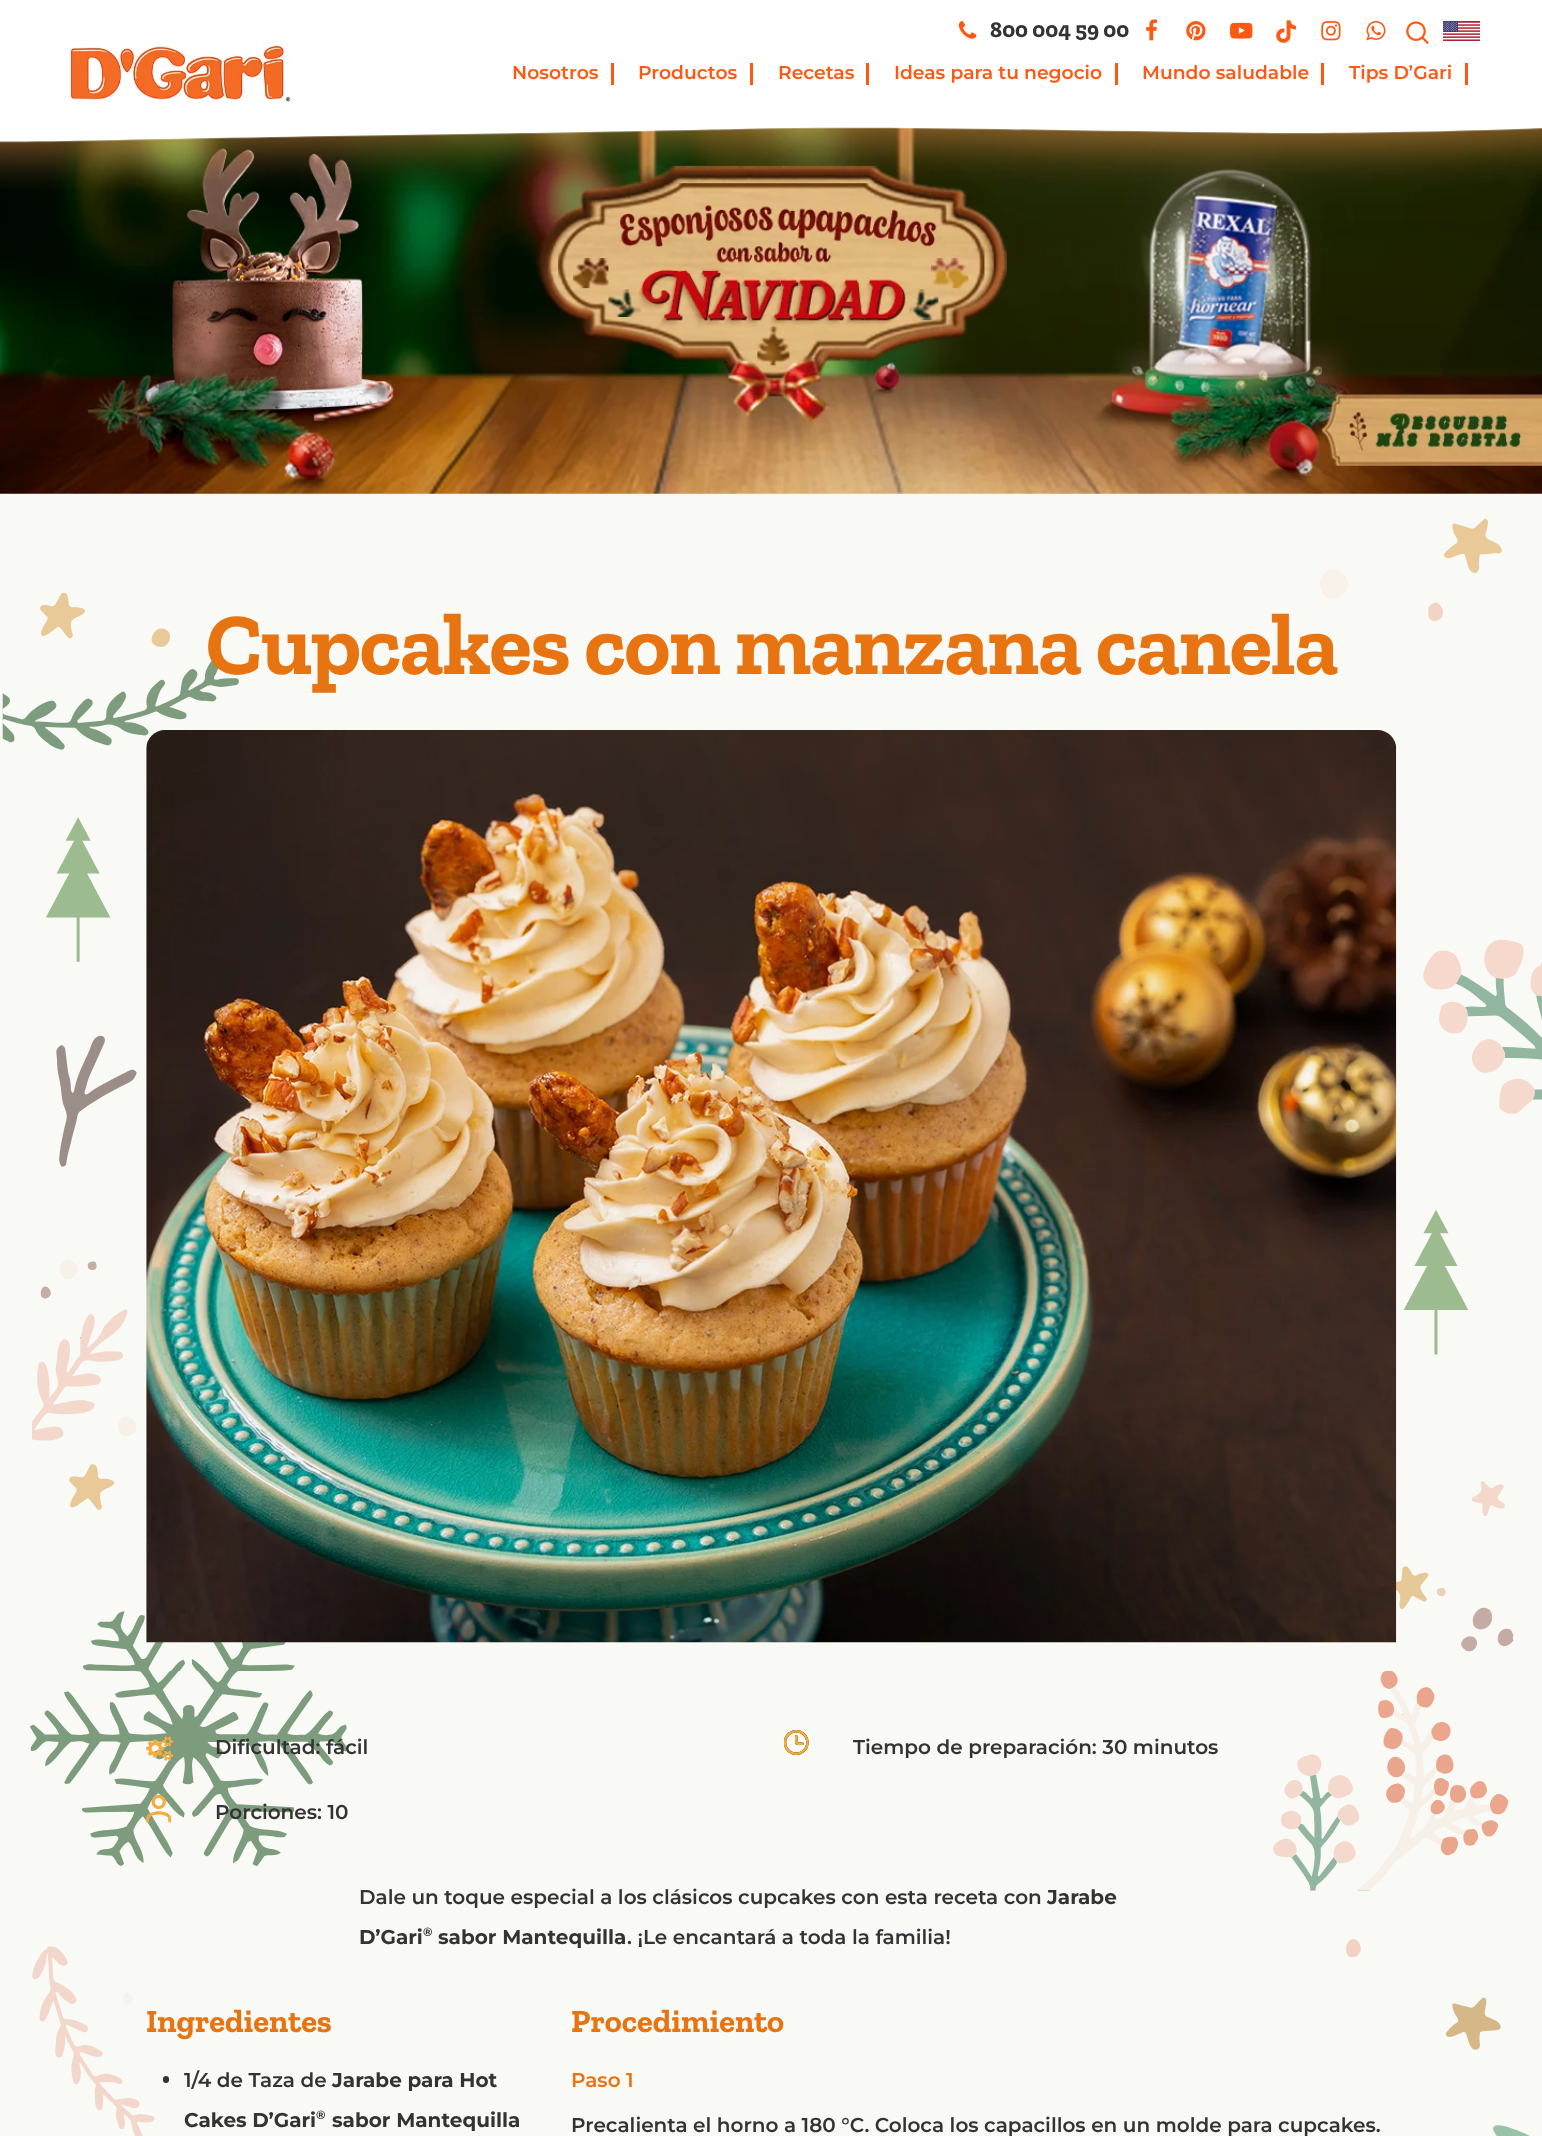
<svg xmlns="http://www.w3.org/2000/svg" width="1542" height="2136">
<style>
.a{font:bold 22.5px Zilla Slab;fill:#333}
.b{font:600 18.75px Montserrat;fill:#ff5812}
.c{font:bold 87.5px Zilla Slab;letter-spacing:-1.25px;fill:#e87411}
.d{font:600 20px Montserrat;fill:#333}
.e{font:bold 20px Montserrat;fill:#333}
.f{font:bold 12px Montserrat;fill:#333}
.g{font:bold 32.5px Zilla Slab;fill:#e87411}
.h{font:600 20px Montserrat;fill:#e87411}
</style>
<rect width="100%" height="100%" fill="#f9f9f5"/>
<image href="13.png" x="0" y="127" width="1542" height="367"/>
<image href="1.png" x="0" y="0" width="1542" height="189"/>
<image href="2.png" x="69" y="44" width="222" height="58"/>
<image href="3.png" x="1406" y="21" width="23" height="23"/>
<image href="4.png" x="1443" y="21" width="37" height="20"/>
<image href="5.png" x="958" y="21" width="19" height="18"/>
<image href="6.png" x="1146" y="19" width="12" height="22"/>
<image href="7.png" x="1186" y="21" width="20" height="20"/>
<image href="8.png" x="1230" y="22" width="23" height="17"/>
<image href="9.png" x="1276" y="20" width="20" height="23"/>
<image href="10.png" x="1321" y="21" width="20" height="20"/>
<image href="11.png" x="1366" y="21" width="20" height="20"/>
<path fill="#ff5812" d="M611 63h3v22H611z"/>
<path fill="#ff5812" d="M750 63h3v22H750z"/>
<path fill="#ff5812" d="M866 63h3v22H866z"/>
<path fill="#ff5812" d="M1115 63h3v22H1115z"/>
<path fill="#ff5812" d="M1321 63h3v22H1321z"/>
<path fill="#ff5812" d="M1465 63h3v22H1465z"/>
<image href="12.png" x="2" y="518" width="1540" height="1618"/>
<image href="14.png" x="146" y="730" width="1251" height="913"/>
<image href="15.png" x="146" y="1736" width="28" height="25"/>
<image href="16.png" x="146" y="1795" width="25" height="28"/>
<image href="17.png" x="784" y="1730" width="25" height="25"/>
<rect fill="#333" x="163" y="2076" width="6" height="7" rx="3"/>
<text class="a" x="990" y="37">800 004 59 00</text>
<text class="b" x="512" y="79">Nosotros</text>
<text class="b" x="638" y="79">Productos</text>
<text class="b" x="778" y="79">Recetas</text>
<text class="b" x="894" y="79">Ideas para tu negocio</text>
<text class="b" x="1142" y="79">Mundo saludable</text>
<text class="b" x="1349" y="79">Tips D’Gari</text>
<text class="c" x="206" y="674">Cupcakes con manzana canela</text>
<text class="d" x="215" y="1754">Dificultad: fácil</text>
<text class="d" x="215" y="1819">Porciones: 10</text>
<text class="d" x="853" y="1754">Tiempo de preparación: 30 minutos</text>
<text class="d" x="359" y="1904">Dale un toque especial a los clásicos cupcakes con esta receta con</text>
<text class="e" x="1047" y="1904">Jarabe</text>
<text class="e" x="359" y="1944">D’Gari</text>
<text class="f" x="423" y="1936">®</text>
<text class="e" x="438" y="1944">sabor Mantequilla</text>
<text class="d" x="627" y="1944">. ¡Le encantará a toda la familia!</text>
<text class="g" x="146" y="2032">Ingredientes</text>
<text class="d" x="184" y="2087">1/4 de Taza de</text>
<text class="e" x="332" y="2087">Jarabe para Hot</text>
<text class="e" x="184" y="2127">Cakes D’Gari</text>
<text class="f" x="316" y="2119">®</text>
<text class="e" x="332" y="2127">sabor Mantequilla</text>
<text class="g" x="571" y="2032">Procedimiento</text>
<text class="h" x="571" y="2087">Paso 1</text>
<text class="d" x="571" y="2132">Precalienta el horno a 180 °C. Coloca los capacillos en un molde para cupcakes.</text>
</svg>
